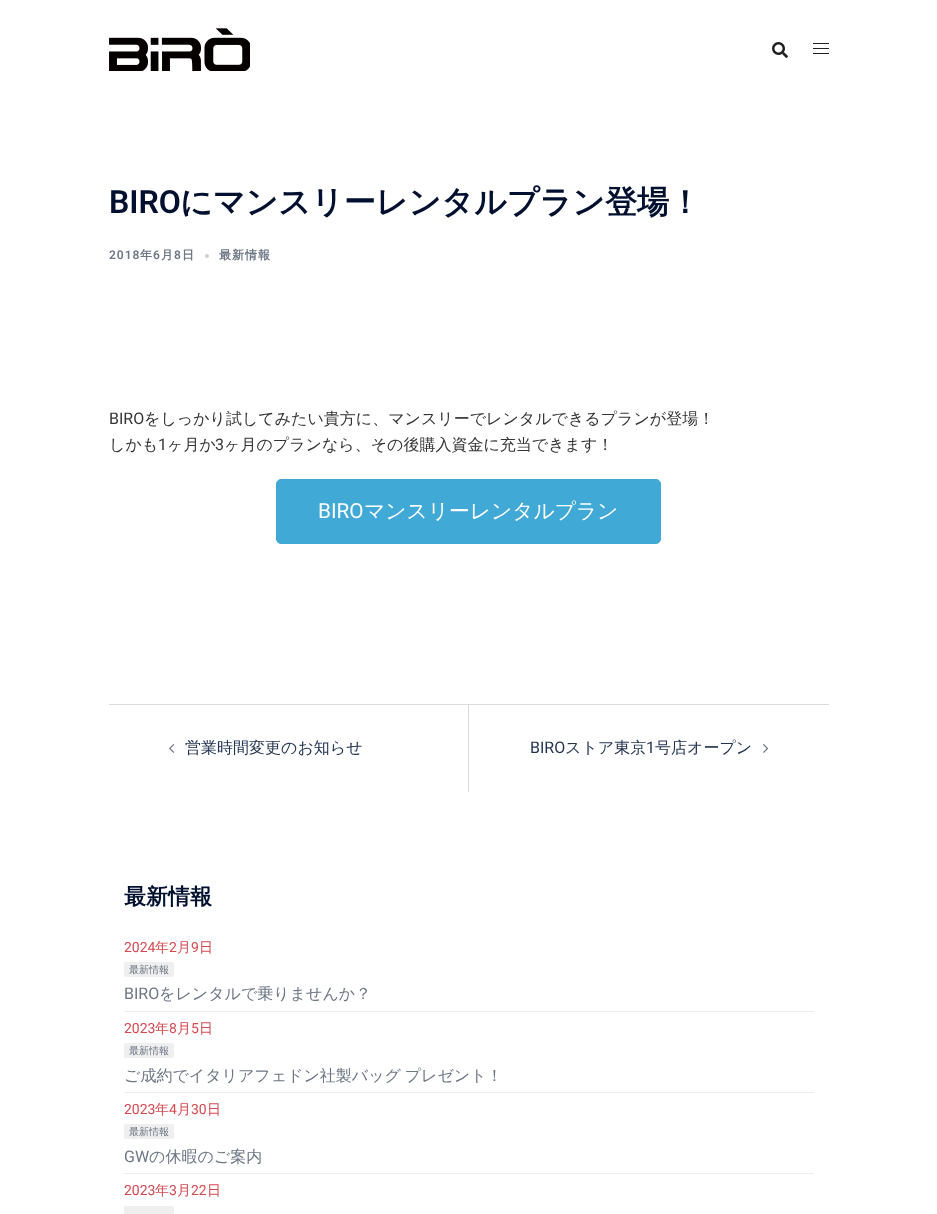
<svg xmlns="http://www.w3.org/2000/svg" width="937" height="1214">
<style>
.a{font:600 32px Roboto;fill:#00102e}
.b{font:bold 32px WenQuanYi Zen Hei;fill:#00102e}
.c{font:600 12px Roboto;letter-spacing:1px;fill:#6d7685}
.d{font:bold 12px WenQuanYi Zen Hei;letter-spacing:1px;fill:#6d7685}
.e{font:16px Roboto;fill:#333}
.f{font:500 16px WenQuanYi Zen Hei;fill:#333}
.g{font:20.75px Roboto;fill:#fff}
.h{font:500 20.75px WenQuanYi Zen Hei;fill:#fff}
.i{font:500 16px WenQuanYi Zen Hei;fill:#233452}
.j{font:16px Roboto;fill:#233452}
.k{font:bold 22px WenQuanYi Zen Hei;fill:#00102e}
.l{font:14px Roboto;fill:#d44950}
.m{font:500 14px WenQuanYi Zen Hei;fill:#d44950}
.n{font:500 10px WenQuanYi Zen Hei;fill:#6d7685}
.o{font:16px Roboto;fill:#6d7685}
.p{font:500 16px WenQuanYi Zen Hei;fill:#6d7685}
</style>
<rect width="100%" height="100%" fill="#fff"/>
<image href="1.png" x="109" y="28" width="141" height="43"/>
<image href="2.png" x="772" y="42" width="16" height="16"/>
<path fill="#212121" d="M813 43h16v1H813z"/>
<path fill="#212121" d="M813 48h16v1H813z"/>
<path fill="#212121" d="M813 53h16v1H813z"/>
<circle fill="#cccfd5" cx="207" cy="256" r="2"/>
<rect fill="#41a9d5" stroke="#41a9d5" x="276.5" y="479.5" width="384" height="64" rx="4.5"/>
<path fill="#dbdbdb" d="M109 704h720v1H109z"/>
<path fill="#dbdbdb" d="M468 705h1v87H468z"/>
<image href="3.png" x="169" y="744" width="6" height="9"/>
<image href="4.png" x="763" y="744" width="6" height="9"/>
<path fill="#ededed" d="M124 1011h690v1H124z"/>
<rect fill="#efefef" x="124" y="962" width="50" height="15" rx="2"/>
<path fill="#ededed" d="M124 1092h690v1H124z"/>
<rect fill="#efefef" x="124" y="1043" width="50" height="15" rx="2"/>
<path fill="#ededed" d="M124 1173h690v1H124z"/>
<rect fill="#efefef" x="124" y="1124" width="50" height="15" rx="2"/>
<rect fill="#efefef" x="124" y="1206" width="50" height="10" rx="2"/>
<text class="a" x="109" y="213">BIRO</text>
<text class="b" x="180" y="213">にマンスリーレンタルプラン登場！</text>
<text class="c" x="109" y="259">2018</text>
<text class="d" x="140" y="259">年</text>
<text class="c" x="153" y="259">6</text>
<text class="d" x="161" y="259">月</text>
<text class="c" x="174" y="259">8</text>
<text class="d" x="182" y="259">日</text>
<text class="d" x="219" y="259">最新情報</text>
<text class="e" x="109" y="424">BIRO</text>
<text class="f" x="144" y="424">をしっかり試してみたい貴方に、マンスリーでレンタルできるプランが登場！</text>
<text class="f" x="109" y="450">しかも</text>
<text class="e" x="158" y="450">1</text>
<text class="f" x="167" y="450">ヶ月か</text>
<text class="e" x="215" y="450">3</text>
<text class="f" x="224" y="450">ヶ月のプランなら、その後購入資金に充当できます！</text>
<text class="g" x="318" y="518">BIRO</text>
<text class="h" x="364" y="518">マンスリーレンタルプラン</text>
<text class="i" x="185" y="753">営業時間変更のお知らせ</text>
<text class="j" x="530" y="753">BIRO</text>
<text class="i" x="565" y="753">ストア東京</text>
<text class="j" x="646" y="753">1</text>
<text class="i" x="655" y="753">号店オープン</text>
<text class="k" x="124" y="904">最新情報</text>
<text class="l" x="124" y="952">2024</text>
<text class="m" x="155" y="952">年</text>
<text class="l" x="169" y="952">2</text>
<text class="m" x="177" y="952">月</text>
<text class="l" x="191" y="952">9</text>
<text class="m" x="199" y="952">日</text>
<text class="n" x="129" y="973">最新情報</text>
<text class="o" x="124" y="999">BIRO</text>
<text class="p" x="159" y="999">をレンタルで乗りませんか？</text>
<text class="l" x="124" y="1033">2023</text>
<text class="m" x="155" y="1033">年</text>
<text class="l" x="169" y="1033">8</text>
<text class="m" x="177" y="1033">月</text>
<text class="l" x="191" y="1033">5</text>
<text class="m" x="199" y="1033">日</text>
<text class="n" x="129" y="1054">最新情報</text>
<text class="p" x="124" y="1081" word-spacing="-1">ご成約でイタリアフェドン社製バッグ プレゼント！</text>
<text class="l" x="124" y="1114">2023</text>
<text class="m" x="155" y="1114">年</text>
<text class="l" x="169" y="1114">4</text>
<text class="m" x="177" y="1114">月</text>
<text class="l" x="191" y="1114">30</text>
<text class="m" x="207" y="1114">日</text>
<text class="n" x="129" y="1135">最新情報</text>
<text class="o" x="124" y="1162">GW</text>
<text class="p" x="149" y="1162">の休暇のご案内</text>
<text class="l" x="124" y="1195">2023</text>
<text class="m" x="155" y="1195">年</text>
<text class="l" x="169" y="1195">3</text>
<text class="m" x="177" y="1195">月</text>
<text class="l" x="191" y="1195">22</text>
<text class="m" x="207" y="1195">日</text>
</svg>
